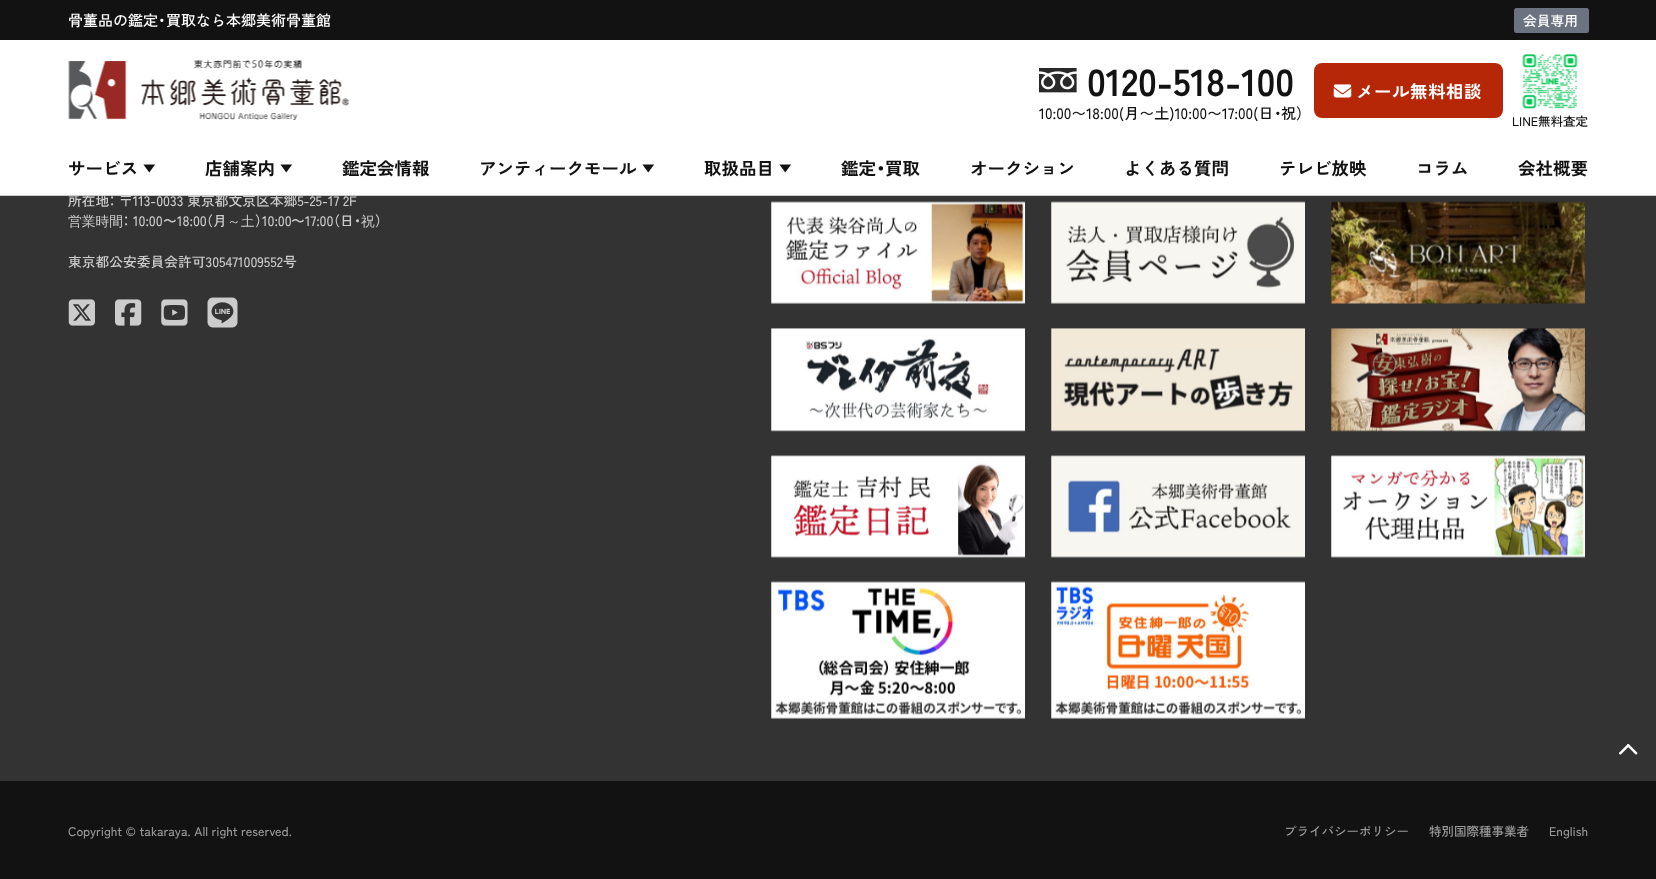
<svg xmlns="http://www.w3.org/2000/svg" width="1656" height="879">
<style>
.a{font:500 15px Zen Kaku Gothic New;fill:#fff}
.b{font:15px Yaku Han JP;fill:#fff}
.c{font:500 13.75px Zen Kaku Gothic New;fill:#fff}
.d{font:500 13.75px Zen Kaku Gothic New;fill:#ccc}
.e{font:13.75px Yaku Han JP;fill:#ccc}
.f{font:bold 17.5px Zen Kaku Gothic New;fill:#121212}
.g{font:bold 17.5px Yaku Han JP;fill:#121212}
.h{font:bold 12.5px Zen Kaku Gothic New;fill:#121212}
.i{font:500 12.5px Zen Kaku Gothic New;fill:#121212}
.j{font:bold 17.5px Zen Kaku Gothic New;letter-spacing:0.5px;fill:#fff}
.k{font:15px Yaku Han JP;fill:#121212}
.l{font:500 15px Zen Kaku Gothic New;fill:#121212}
.m{font:bold 37.5px Zen Kaku Gothic New;fill:#121212}
.n{font:500 13.75px WenQuanYi Zen Hei;fill:#ccc}
.o{font:500 12.5px Zen Kaku Gothic New;fill:#999}
</style>
<rect width="100%" height="100%" fill="#333"/>
<path fill="#ccc" d="M0 195h1656v1H0z"/>
<path fill="#121212" d="M0 0h1656v40H0z"/>
<rect fill="#6b7280" x="1514" y="8" width="75" height="25" rx="2.5"/>
<image href="5.png" x="68" y="299" width="27" height="27"/>
<image href="6.png" x="115" y="299" width="27" height="27"/>
<image href="7.png" x="161" y="299" width="27" height="27"/>
<image href="8.png" x="207" y="297" width="31" height="31"/>
<image href="9.png" x="771" y="201" width="254" height="103"/>
<image href="10.png" x="1051" y="201" width="254" height="103"/>
<image href="11.png" x="1331" y="201" width="254" height="103"/>
<image href="12.png" x="771" y="328" width="254" height="104"/>
<image href="13.png" x="1051" y="328" width="254" height="104"/>
<image href="14.png" x="1331" y="328" width="254" height="104"/>
<image href="15.png" x="771" y="455" width="254" height="103"/>
<image href="16.png" x="1051" y="455" width="254" height="103"/>
<image href="17.png" x="1331" y="455" width="254" height="103"/>
<image href="18.png" x="771" y="581" width="254" height="138"/>
<image href="19.png" x="1051" y="581" width="254" height="138"/>
<path fill="#121212" d="M0 781h1656v98H0z"/>
<image href="20.png" x="1619" y="744" width="19" height="11"/>
<text class="a" x="68" y="26">骨董品の鑑定</text>
<text class="b" x="158" y="26">・</text>
<text class="a" x="166" y="26">買取なら本郷美術骨董館</text>
<text class="c" x="1523" y="26">会員専用</text>
<text class="d" x="68" y="206">所在地</text>
<text class="e" x="109" y="206">：</text>
<text class="d" x="119" y="206">〒113-0033 東京都文京区本郷5-25-17 2F</text>
<path fill="#fff" d="M0 40h1656v155H0z"/>
<text class="f" x="1518" y="175">会社概要</text>
<text class="f" x="1416" y="175">コラム</text>
<text class="f" x="1279" y="175">テレビ放映</text>
<text class="f" x="1124" y="175">よくある質問</text>
<text class="f" x="970" y="175">オークション</text>
<text class="f" x="885" y="175">買取</text>
<text class="g" x="876" y="175">・</text>
<text class="f" x="841" y="175">鑑定</text>
<text class="h" x="779" y="173">▼</text>
<text class="f" x="704" y="175">取扱品目</text>
<text class="h" x="642" y="173">▼</text>
<text class="f" x="479" y="175">アンティークモール</text>
<text class="f" x="342" y="175">鑑定会情報</text>
<text class="h" x="280" y="173">▼</text>
<text class="f" x="205" y="175">店舗案内</text>
<text class="h" x="143" y="173">▼</text>
<text class="f" x="68" y="175">サービス</text>
<text class="i" x="1512" y="126">LINE無料査定</text>
<image href="4.png" x="1522" y="54" width="56" height="55"/>
<rect fill="#b62708" x="1314" y="63" width="189" height="55" rx="8"/>
<text class="j" x="1356" y="98">メール無料相談</text>
<image href="3.png" x="1333" y="84" width="19" height="14"/>
<text class="k" x="1296" y="119">）</text>
<text class="l" x="1281" y="119">祝</text>
<text class="k" x="1274" y="119">・</text>
<text class="l" x="1039" y="119">10:00〜18:00(月〜土)10:00〜17:00(日</text>
<text class="m" x="1087" y="96">0120-518-100</text>
<image href="2.png" x="1039" y="68" width="38" height="25"/>
<image href="1.png" x="68" y="60" width="281" height="60"/>
<text class="n" x="68" y="226">営業時間</text>
<text class="e" x="123" y="226">：</text>
<text class="d" x="133" y="226">10:00</text>
<text class="n" x="163" y="226">〜</text>
<text class="d" x="177" y="226">18:00</text>
<text class="e" x="206" y="226">（</text>
<text class="d" x="213" y="226">月</text>
<text class="n" x="227" y="226">～土</text>
<text class="e" x="255" y="226">）</text>
<text class="d" x="262" y="226">10:00</text>
<text class="n" x="291" y="226">〜</text>
<text class="d" x="305" y="226">17:00</text>
<text class="e" x="333" y="226">（</text>
<text class="d" x="340" y="226">日</text>
<text class="e" x="354" y="226">・</text>
<text class="n" x="361" y="226">祝</text>
<text class="e" x="375" y="226">）</text>
<text class="d" x="68" y="267">東京都公安委員会許可305471009552号</text>
<text class="o" x="68" y="836">Copyright ©︎ takaraya. All right reserved.</text>
<text class="o" x="1284" y="836">プライバシーポリシー</text>
<text class="o" x="1429" y="836">特別国際種事業者</text>
<text class="o" x="1549" y="836">English</text>
</svg>
